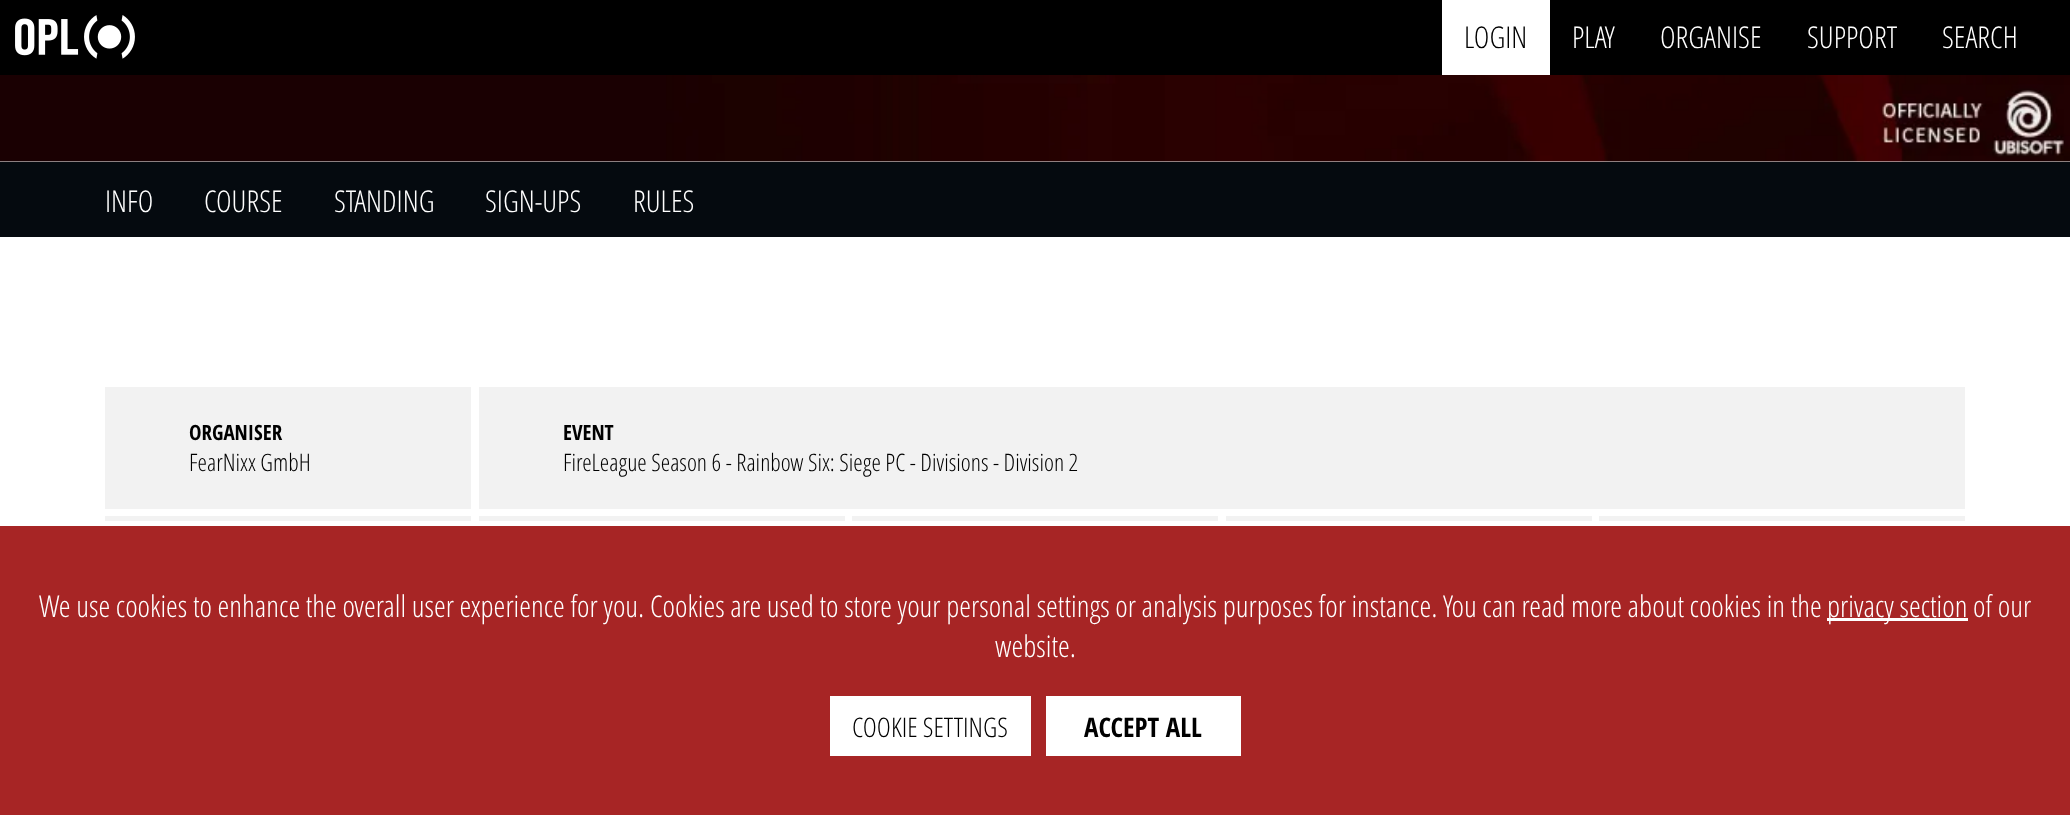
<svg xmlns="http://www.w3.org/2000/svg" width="2070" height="815">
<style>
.a{font:300 30px Open Sans;fill:#000}
.b{font:300 30px Open Sans;fill:#fff}
.c{font:bold 21px Open Sans Condensed;fill:#000}
.d{font:300 24px Open Sans;fill:#000}
.e{font:300 27px Open Sans;fill:#000}
.f{font:bold 27px Open Sans Condensed;fill:#000}
</style>
<rect width="100%" height="100%" fill="#fff"/>
<path fill="#000" d="M0 0h2070v75H0z"/>
<image href="1.png" x="15" y="15" width="120" height="44"/>
<path fill="#fff" d="M1442 0h108v75H1442z"/>
<image href="2.png" x="0" y="75" width="2070" height="87"/>
<path fill="#050a0f" d="M0 162h2070v75H0z"/>
<path fill="#f2f2f2" d="M105 387h366v122H105z"/>
<path fill="#f2f2f2" d="M479 387h1486v122H479z"/>
<path fill="#f2f2f2" d="M105 516h366v5H105z"/>
<path fill="#f2f2f2" d="M479 516h366v5H479z"/>
<path fill="#f2f2f2" d="M852 516h366v5H852z"/>
<path fill="#f2f2f2" d="M1226 516h366v5H1226z"/>
<path fill="#f2f2f2" d="M1599 516h366v5H1599z"/>
<path fill="#a72525" d="M0 526h2070v289H0z"/>
<path fill="#fff" d="M1827 618h141v3H1827z"/>
<path fill="#fff" d="M830 696h201v60H830z"/>
<path fill="#fff" d="M1046 696h195v60H1046z"/>
<text class="a" x="1464" y="48">LOGIN</text>
<text class="b" x="1572" y="48">PLAY</text>
<text class="b" x="1660" y="48">ORGANISE</text>
<text class="b" x="1807" y="48">SUPPORT</text>
<text class="b" x="1942" y="48">SEARCH</text>
<text class="b" x="105" y="212">INFO</text>
<text class="b" x="204" y="212">COURSE</text>
<text class="b" x="334" y="212">STANDING</text>
<text class="b" x="485" y="212">SIGN-UPS</text>
<text class="b" x="633" y="212">RULES</text>
<text class="c" x="189" y="440">ORGANISER</text>
<text class="d" x="189" y="471">FearNixx GmbH</text>
<text class="c" x="563" y="440">EVENT</text>
<text class="d" x="563" y="471">FireLeague Season 6 - Rainbow Six: Siege PC - Divisions - Division 2</text>
<text class="b" x="39" y="617">We use cookies to enhance the overall user experience for you. Cookies are used to store your personal settings or analysis purposes for instance. You can read more about cookies in the</text>
<text class="b" x="1827" y="617">privacy section of our</text>
<text class="b" x="995" y="657">website.</text>
<text class="e" x="852" y="737">COOKIE SETTINGS</text>
<text class="f" x="1084" y="737">ACCEPT ALL</text>
</svg>
